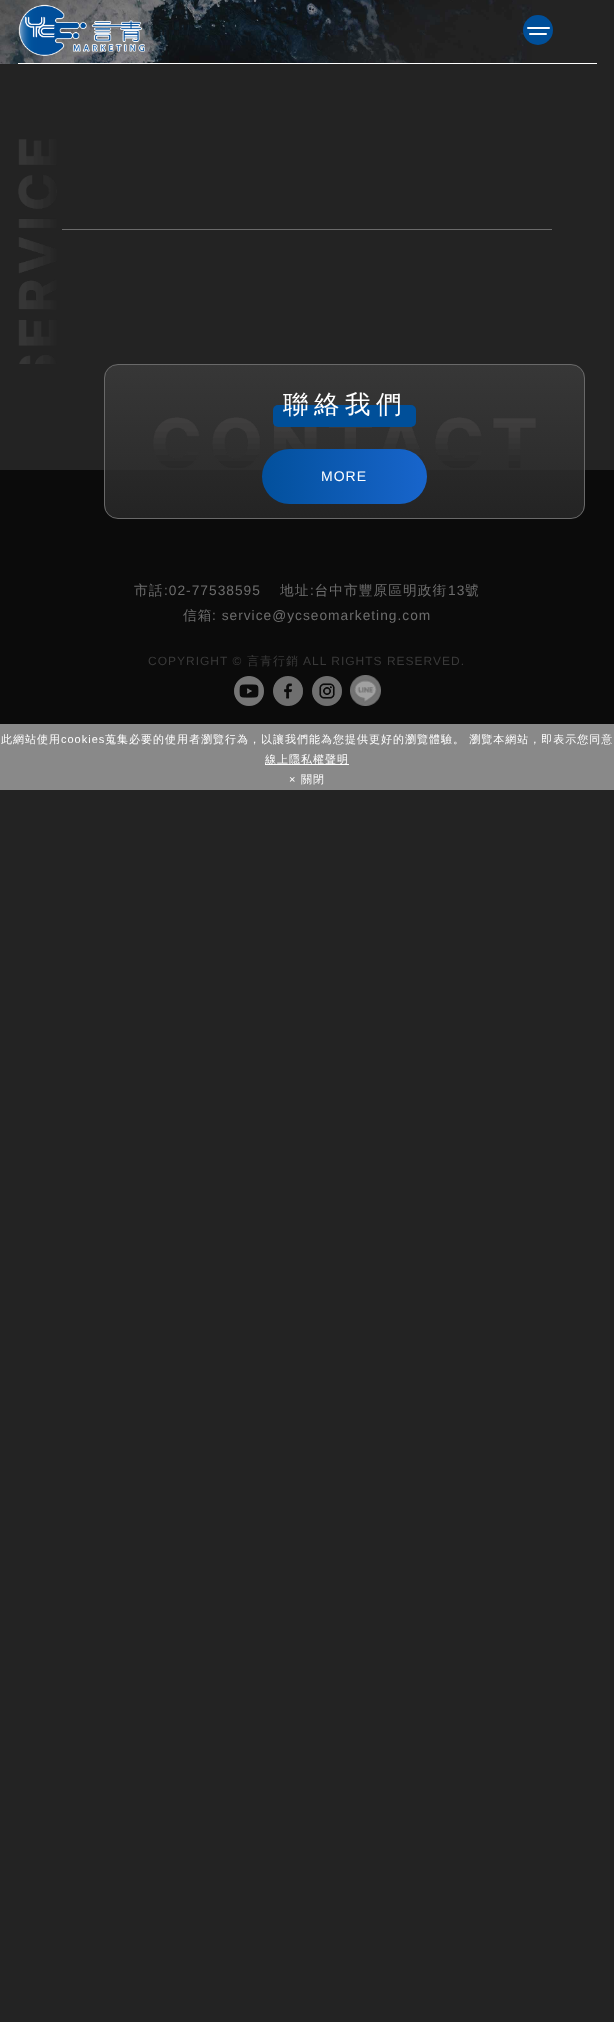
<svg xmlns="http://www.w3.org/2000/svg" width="614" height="2022">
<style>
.a{font:500 25.5px WenQuanYi Zen Hei;letter-spacing:5.5px;fill:#fff}
.b{font:14px Liberation Sans;letter-spacing:1px;fill:#fff}
.c{font:500 13.75px WenQuanYi Zen Hei;letter-spacing:1px;fill:#6d6d6d}
.d{font:13.75px Liberation Sans;letter-spacing:1px;fill:#6d6d6d}
.e{font:12px Liberation Sans;letter-spacing:1px;fill:#3a3a3a}
.f{font:500 12px WenQuanYi Zen Hei;letter-spacing:1px;fill:#3a3a3a}
.g{font:500 11px WenQuanYi Zen Hei;letter-spacing:1px;fill:#fff}
.h{font:11px Liberation Sans;letter-spacing:1px;fill:#fff}
</style>
<defs>
<clipPath id="clip1"><rect x="104" y="364" width="481" height="155" rx="14"/></clipPath>
<linearGradient id="g1" gradientUnits="userSpaceOnUse" x1="345" y1="365" x2="345" y2="518"><stop offset="0" stop-color="#3c3c3c" stop-opacity="0.8"/><stop offset="1" stop-color="#2a2a2a" stop-opacity="0.8"/></linearGradient>
<linearGradient id="g2" gradientUnits="userSpaceOnUse" x1="262" y1="477" x2="592" y2="477"><stop offset="0" stop-color="#02509c"/><stop offset="0.5" stop-color="#1865cc"/><stop offset="1" stop-color="#03adc4"/></linearGradient>
</defs>
<rect width="100%" height="100%" fill="#232323"/>
<image href="2.png" x="0" y="0" width="532" height="64"/>
<path fill="#fff" d="M18 63h579v1H18z"/>
<image href="1.png" x="18" y="4" width="127" height="52"/>
<circle fill="#004f99" cx="538" cy="30" r="15"/>
<rect fill="#fff" x="527" y="27" width="23" height="2" rx="1"/>
<rect fill="#fff" x="529" y="33" width="18" height="2" rx="1"/>
<image href="3.png" x="18" y="139" width="39" height="225"/>
<path fill="#6a6a6a" d="M62 229h490v1H62z"/>
<path fill="#0b0b0b" d="M0 470h614v254H0z"/>
<g clip-path="url(#clip1)">
<path fill="url(#g1)" d="M104 365h481v153H104z"/>
</g>
<rect fill="none" stroke="#696969" x="104.5" y="364.5" width="480" height="154" rx="13.5"/>
<image href="4.png" x="153" y="417" width="383" height="51"/>
<rect fill="#004f99" x="273" y="405" width="143" height="22" rx="5"/>
<rect fill="url(#g2)" x="262" y="449" width="165" height="55" rx="27.5"/>
<image href="5.png" x="234" y="676" width="30" height="30"/>
<image href="6.png" x="273" y="676" width="30" height="30"/>
<image href="7.png" x="312" y="676" width="30" height="30"/>
<image href="8.png" x="350" y="675" width="31" height="31"/>
<path fill="#898989" d="M0 724h614v66H0z"/>
<path fill="#fff" d="M265 764h84v1H265z"/>
<text class="a" x="283" y="413">聯絡我們</text>
<text class="b" x="321" y="481">MORE</text>
<text class="c" x="134" y="595">市話</text>
<text class="d" x="164" y="595">:02-77538595</text>
<text class="c" x="280" y="595">地址 台中市豐原區明政街</text>
<text class="d" x="448" y="595">13</text>
<text class="c" x="465" y="595">號</text>
<text class="d" x="310" y="595">:</text>
<text class="c" x="183" y="620">信箱</text>
<text class="d" x="212" y="620">: service@ycseomarketing.com</text>
<text class="e" x="148" y="665">COPYRIGHT ©</text>
<text class="f" x="247" y="665">言青行銷</text>
<text class="e" x="303" y="665">ALL RIGHTS RESERVED.</text>
<text class="g" x="1" y="743">此網站使用</text>
<text class="h" x="61" y="743">cookies</text>
<text class="g" x="105" y="743">蒐集必要的使用者瀏覽行為，以讓我們能為您提供更好的瀏覽體驗。 瀏覽本網站，即表示您同意</text>
<text class="g" x="265" y="763">線上隱私權聲明</text>
<text class="h" x="289" y="783">×</text>
<text class="g" x="301" y="783">關閉</text>
</svg>
